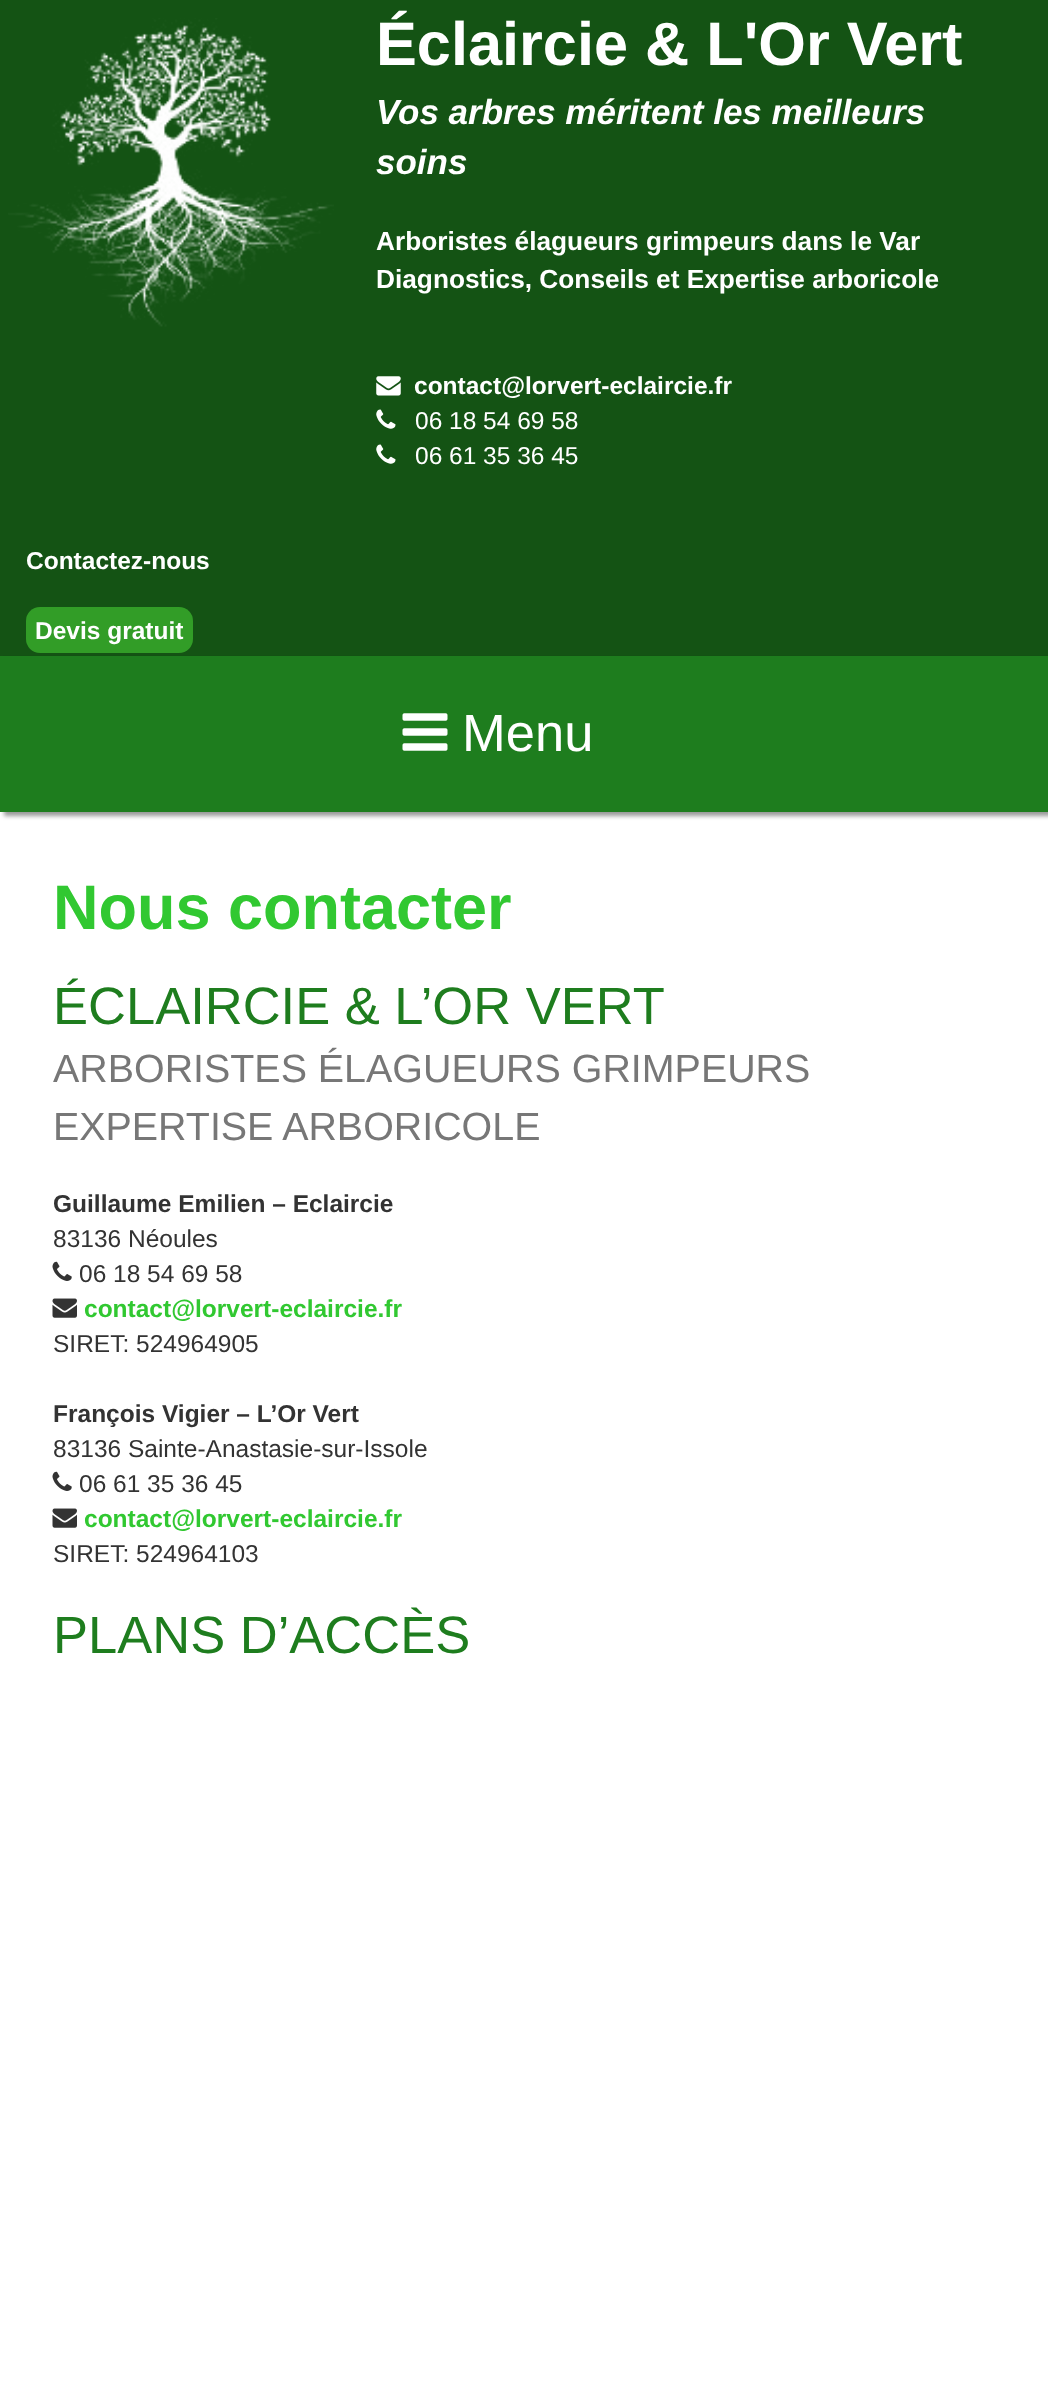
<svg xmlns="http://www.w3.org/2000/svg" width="1048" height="2388">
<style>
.a{font:bold 61.25px Liberation Sans;fill:#fff}
.b{font:italic bold 35px Liberation Sans;fill:#fff}
.c{font:bold 26.25px Liberation Sans;fill:#fff}
.d{font:bold 24.5px Liberation Sans;fill:#fff}
.e{font:24.5px Liberation Sans;fill:#fff}
.f{font:52.5px Liberation Sans;fill:#fff}
.g{font:bold 63px Liberation Sans;fill:#31c831}
.h{font:52.5px Liberation Sans;fill:#1e7d1e}
.i{font:39.4px Liberation Sans;fill:#777}
.j{font:bold 24.5px Liberation Sans;fill:#333}
.k{font:24.5px Liberation Sans;fill:#333}
.l{font:bold 24.5px Liberation Sans;fill:#31c831}
</style>
<rect width="100%" height="100%" fill="#145314"/>
<image href="1.png" x="8" y="18" width="326" height="309"/>
<image href="2.png" x="376" y="376" width="25" height="20"/>
<image href="3.png" x="376" y="409" width="20" height="20"/>
<image href="3.png" x="376" y="444" width="20" height="20"/>
<rect fill="#329d27" x="26" y="607" width="167" height="46" rx="14"/>
<path fill="#fff" d="M0 812h1048v1576H0z"/>
<path fill="#00000066" filter="blur(2px)" d="M4 660h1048v156H4z"/>
<path fill="#1e7d1e" d="M0 656h1048v156H0z"/>
<image href="4.png" x="402" y="713" width="46" height="38"/>
<image href="5.png" x="52" y="1261" width="20" height="20"/>
<image href="6.png" x="52" y="1298" width="25" height="20"/>
<image href="5.png" x="52" y="1471" width="20" height="20"/>
<image href="6.png" x="52" y="1508" width="25" height="20"/>
<text class="a" x="376" y="65">Éclaircie &amp; L'Or Vert</text>
<text class="b" x="376" y="124">Vos arbres méritent les meilleurs</text>
<text class="b" x="376" y="174">soins</text>
<text class="c" x="376" y="250">Arboristes élagueurs grimpeurs dans le Var</text>
<text class="c" x="376" y="288">Diagnostics, Conseils et Expertise arboricole</text>
<text class="d" x="414" y="394">contact@lorvert-eclaircie.fr</text>
<text class="e" x="415" y="429">06 18 54 69 58</text>
<text class="e" x="415" y="464">06 61 35 36 45</text>
<text class="d" x="26" y="569">Contactez-nous</text>
<text class="d" x="35" y="639">Devis gratuit</text>
<text class="f" x="462" y="751">Menu</text>
<text class="g" x="53" y="929">Nous contacter</text>
<text class="h" x="53" y="1024">ÉCLAIRCIE &amp; L’OR VERT</text>
<text class="i" x="53" y="1082">ARBORISTES ÉLAGUEURS GRIMPEURS</text>
<text class="i" x="53" y="1140">EXPERTISE ARBORICOLE</text>
<text class="j" x="53" y="1212">Guillaume Emilien – Eclaircie</text>
<text class="k" x="53" y="1247">83136 Néoules</text>
<text class="k" x="79" y="1282">06 18 54 69 58</text>
<text class="l" x="84" y="1317">contact@lorvert-eclaircie.fr</text>
<text class="k" x="53" y="1352">SIRET: 524964905</text>
<text class="j" x="53" y="1422">François Vigier – L’Or Vert</text>
<text class="k" x="53" y="1457">83136 Sainte-Anastasie-sur-Issole</text>
<text class="k" x="79" y="1492">06 61 35 36 45</text>
<text class="l" x="84" y="1527">contact@lorvert-eclaircie.fr</text>
<text class="k" x="53" y="1562">SIRET: 524964103</text>
<text class="h" x="53" y="1653">PLANS D’ACCÈS</text>
</svg>
